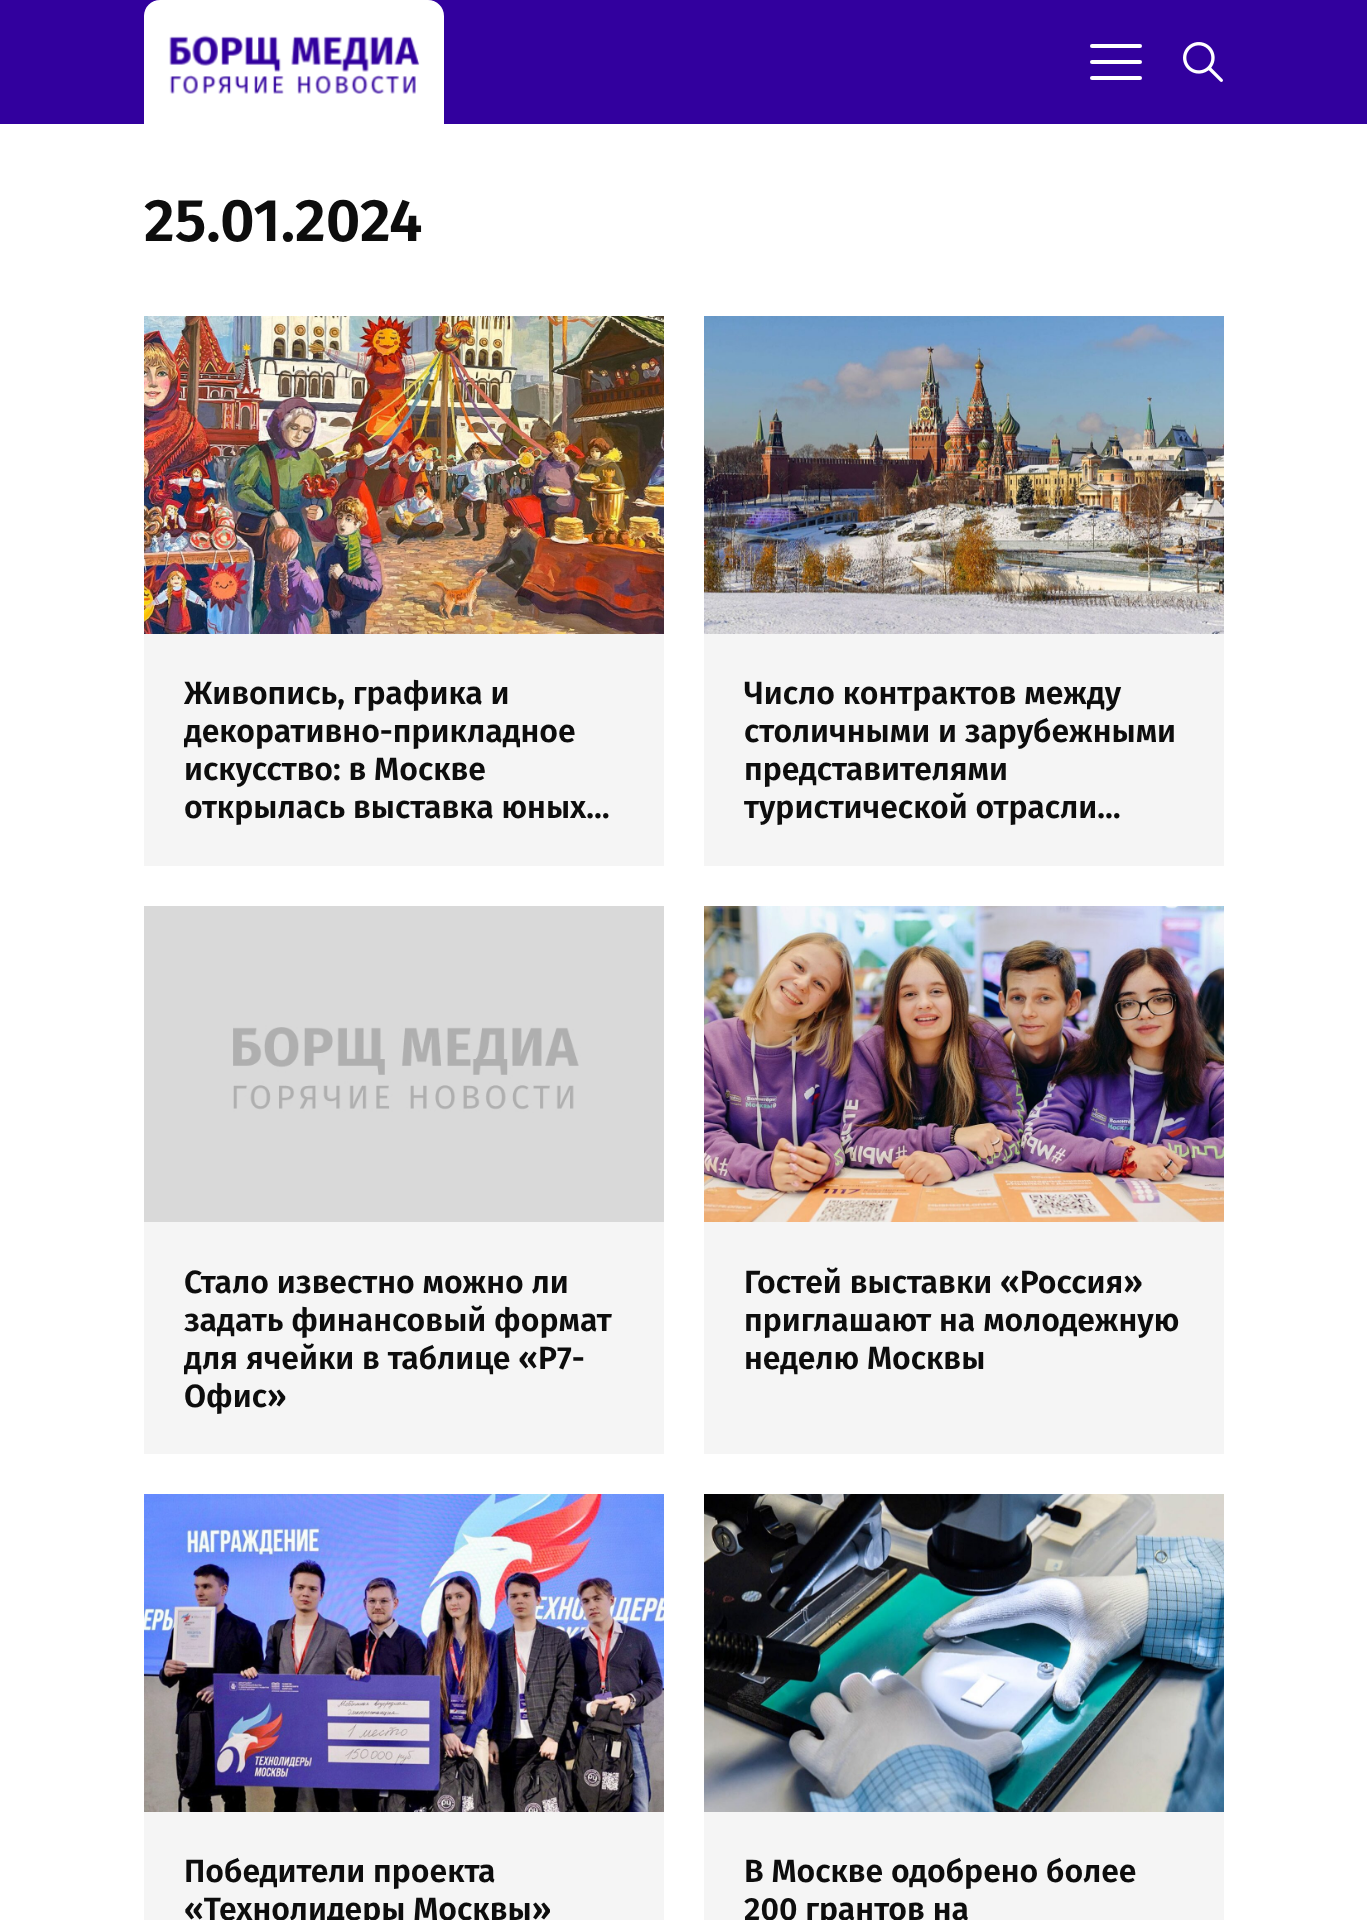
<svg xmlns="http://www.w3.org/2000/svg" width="1367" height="1920">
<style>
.a{font:600 60px Fira Sans;fill:#0d0d0d}
.b{font:600 32px Fira Sans;fill:#0d0d0d}
</style>
<rect width="100%" height="100%" fill="#fff"/>
<path fill="#32009e" d="M0 0h1367v124H0z"/>
<path fill="#fff" d="M160 0h268c9 0 16 7 16 16v108h-300v-108c0-9 7-16 16-16z"/>
<image href="1.png" x="169" y="35" width="251" height="59"/>
<rect fill="#fff" x="1090" y="60" width="52" height="4" rx="2"/>
<rect fill="#fff" x="1090" y="44" width="52" height="4" rx="2"/>
<rect fill="#fff" x="1090" y="76" width="52" height="4" rx="2"/>
<image href="2.png" x="1183" y="42" width="40" height="40"/>
<image href="3.png" x="144" y="316" width="520" height="318"/>
<path fill="#f5f5f5" d="M144 634h520v232H144z"/>
<image href="4.png" x="704" y="316" width="520" height="318"/>
<path fill="#f5f5f5" d="M704 634h520v232H704z"/>
<image href="5.png" x="144" y="906" width="520" height="316"/>
<path fill="#f5f5f5" d="M144 1222h520v232H144z"/>
<image href="6.png" x="704" y="906" width="520" height="316"/>
<path fill="#f5f5f5" d="M704 1222h520v232H704z"/>
<image href="7.png" x="144" y="1494" width="520" height="318"/>
<path fill="#f5f5f5" d="M144 1812h520v108H144z"/>
<image href="8.png" x="704" y="1494" width="520" height="318"/>
<path fill="#f5f5f5" d="M704 1812h520v108H704z"/>
<text class="a" x="144" y="241">25.01.2024</text>
<text class="b" x="184" y="704">Живопись, графика и</text>
<text class="b" x="184" y="742">декоративно-прикладное</text>
<text class="b" x="184" y="780">искусство: в Москве</text>
<text class="b" x="184" y="818">открылась выставка юных…</text>
<text class="b" x="744" y="704">Число контрактов между</text>
<text class="b" x="744" y="742">столичными и зарубежными</text>
<text class="b" x="744" y="780">представителями</text>
<text class="b" x="744" y="818">туристической отрасли…</text>
<text class="b" x="184" y="1293">Стало известно можно ли</text>
<text class="b" x="184" y="1331">задать финансовый формат</text>
<text class="b" x="184" y="1369">для ячейки в таблице «Р7-</text>
<text class="b" x="184" y="1407">Офис»</text>
<text class="b" x="744" y="1293">Гостей выставки «Россия»</text>
<text class="b" x="744" y="1331">приглашают на молодежную</text>
<text class="b" x="744" y="1369">неделю Москвы</text>
<text class="b" x="184" y="1882">Победители проекта</text>
<text class="b" x="184" y="1920">«Технолидеры Москвы»</text>
<text class="b" x="744" y="1882">В Москве одобрено более</text>
<text class="b" x="744" y="1920">200 грантов на</text>
</svg>
